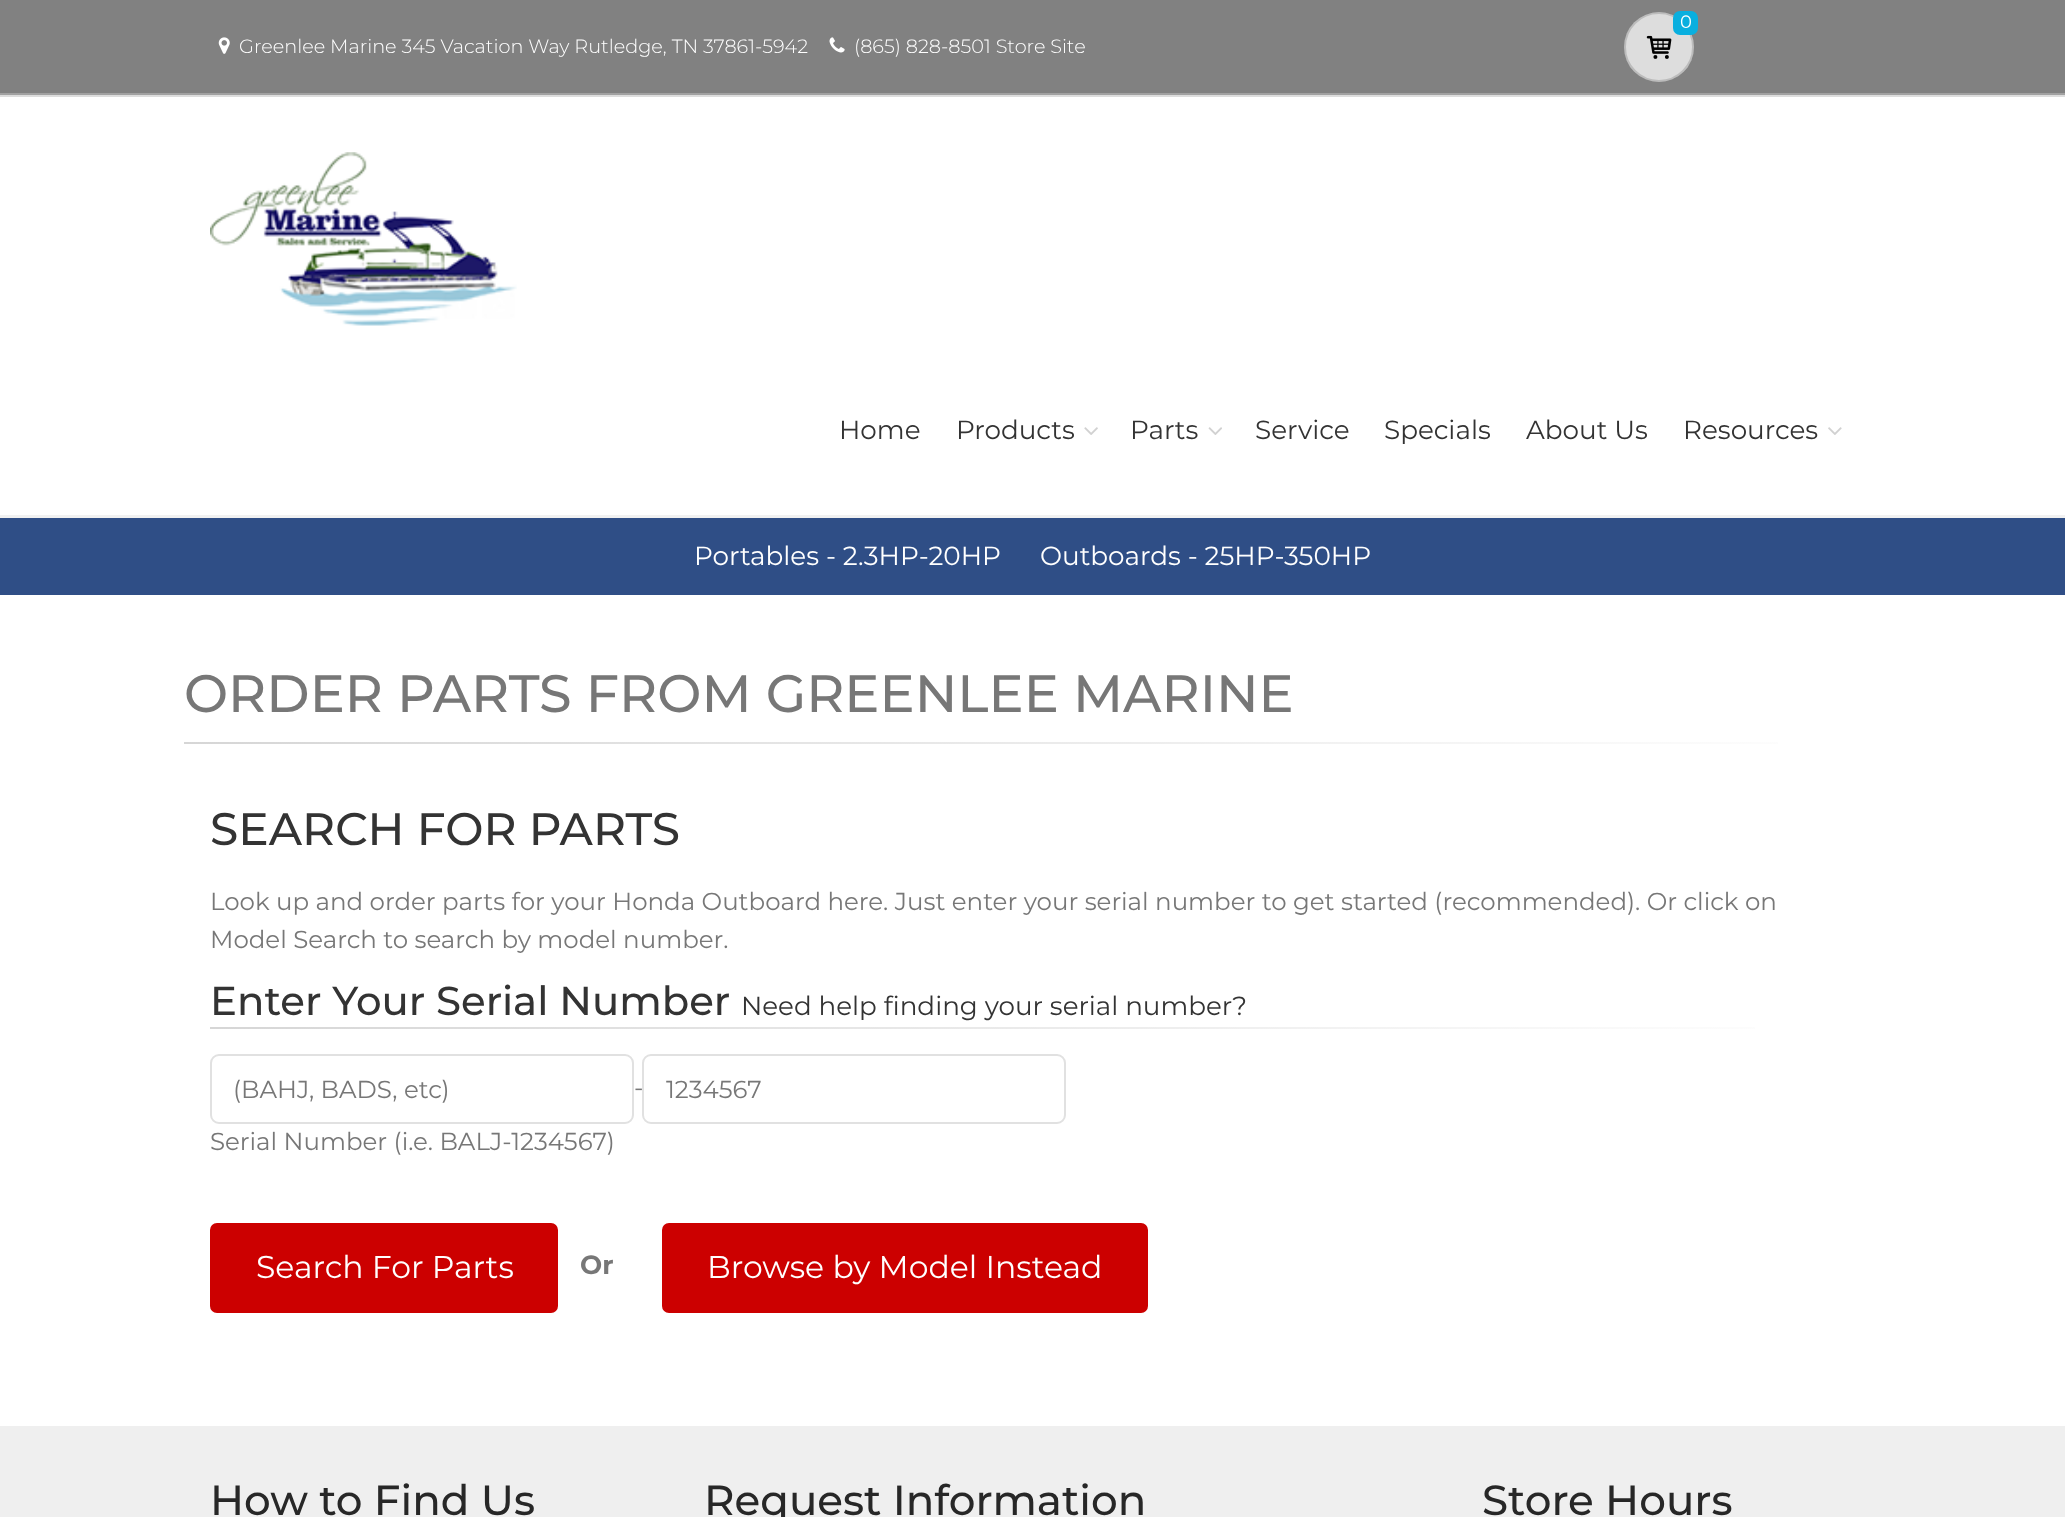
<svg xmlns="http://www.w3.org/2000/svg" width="2065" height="1517">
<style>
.a{font:18px Montserrat;fill:#fff}
.b{font:300 19.25px Montserrat;fill:#fff}
.c{font:26.25px Montserrat;fill:#333}
.d{font:26.25px Montserrat;fill:#fff}
.e{font:500 52.5px Montserrat;fill:#777}
.f{font:500 45.5px Montserrat;fill:#333}
.g{font:24.5px Montserrat;fill:#777}
.h{font:500 40.25px Montserrat;fill:#333}
.i{font:26.2px Montserrat;fill:#333}
.j{font:31.5px Montserrat;fill:#fff}
.k{font:bold 26.25px Montserrat;fill:#777}
.l{font:500 42px Montserrat;fill:#272727}
</style>
<defs>
<linearGradient id="g1" gradientUnits="userSpaceOnUse" x1="184" y1="743" x2="1881" y2="743"><stop offset="0" stop-color="#d6d6d6"/><stop offset="1" stop-color="#fff"/></linearGradient>
<linearGradient id="g2" gradientUnits="userSpaceOnUse" x1="210" y1="1028" x2="1855" y2="1028"><stop offset="0" stop-color="#d6d6d6"/><stop offset="1" stop-color="#fff"/></linearGradient>
</defs>
<rect width="100%" height="100%" fill="#fff"/>
<path fill="#818181" d="M0 0h2065v93H0z"/>
<path fill="#a1a1a1" d="M0 93h2065v2H0z"/>
<circle fill="#ddd" cx="1659" cy="47" r="35"/>
<circle fill="none" stroke="#00000026" stroke-width="2" cx="1659" cy="47" r="34"/>
<rect fill="#09afdf" x="1673" y="11" width="25" height="24" rx="7"/>
<image href="1.png" x="1646" y="35" width="26" height="24"/>
<image href="2.png" x="218" y="37" width="12" height="17"/>
<image href="3.png" x="829" y="37" width="16" height="16"/>
<path fill="#ddd" d="M0 95h2065v2H0z"/>
<path fill="#f1f1f1" d="M0 515h2065v3H0z"/>
<image href="4.png" x="210" y="152" width="307" height="174"/>
<image href="5.png" x="1084" y="427" width="14" height="8"/>
<image href="6.png" x="1208" y="427" width="14" height="8"/>
<image href="7.png" x="1828" y="427" width="14" height="8"/>
<path fill="#2f4e86" d="M0 518h2065v77H0z"/>
<path fill="url(#g1)" d="M184 742h1594v2H184z"/>
<path fill="url(#g2)" d="M210 1027h1545v2H210z"/>
<rect fill="none" stroke="#e1e1e1" stroke-width="2" x="211" y="1055" width="422" height="68" rx="8"/>
<rect fill="none" stroke="#e1e1e1" stroke-width="2" x="643" y="1055" width="422" height="68" rx="8"/>
<rect fill="#c00" stroke="#c00" stroke-width="2" x="211" y="1224" width="346" height="88" rx="6"/>
<rect fill="#c00" stroke="#c00" stroke-width="2" x="663" y="1224" width="484" height="88" rx="6"/>
<path fill="#efefef" d="M0 1426h2065v91H0z"/>
<text class="a" x="1680" y="28">0</text>
<text class="b" x="239" y="53">Greenlee Marine 345 Vacation Way Rutledge, TN 37861-5942</text>
<text class="b" x="854" y="53">(865) 828-8501 Store Site</text>
<text class="c" x="839" y="439">Home</text>
<text class="c" x="956" y="439">Products</text>
<text class="c" x="1130" y="439">Parts</text>
<text class="c" x="1255" y="439">Service</text>
<text class="c" x="1384" y="439">Specials</text>
<text class="c" x="1526" y="439">About Us</text>
<text class="c" x="1683" y="439">Resources</text>
<text class="d" x="694" y="565">Portables - 2.3HP-20HP</text>
<text class="d" x="1040" y="565">Outboards - 25HP-350HP</text>
<text class="e" x="184" y="712">ORDER PARTS FROM GREENLEE MARINE</text>
<text class="f" x="210" y="845">SEARCH FOR PARTS</text>
<text class="g" x="210" y="910">Look up and order parts for your Honda Outboard here. Just enter your serial number to get started (recommended). Or click on</text>
<text class="g" x="210" y="948">Model Search to search by model number.</text>
<text class="h" x="210" y="1015">Enter Your Serial Number</text>
<text class="i" x="741" y="1015">Need help finding your serial number?</text>
<text class="g" x="233" y="1098">(BAHJ, BADS, etc)</text>
<text class="g" x="634" y="1096">-</text>
<text class="g" x="666" y="1098">1234567</text>
<text class="g" x="210" y="1150">Serial Number (i.e. BALJ-1234567)</text>
<text class="j" x="256" y="1278">Search For Parts</text>
<text class="k" x="580" y="1274">Or</text>
<text class="j" x="707" y="1278">Browse by Model Instead</text>
<text class="l" x="210" y="1515">How to Find Us</text>
<text class="l" x="704" y="1515">Request Information</text>
<text class="l" x="1482" y="1515">Store Hours</text>
</svg>
